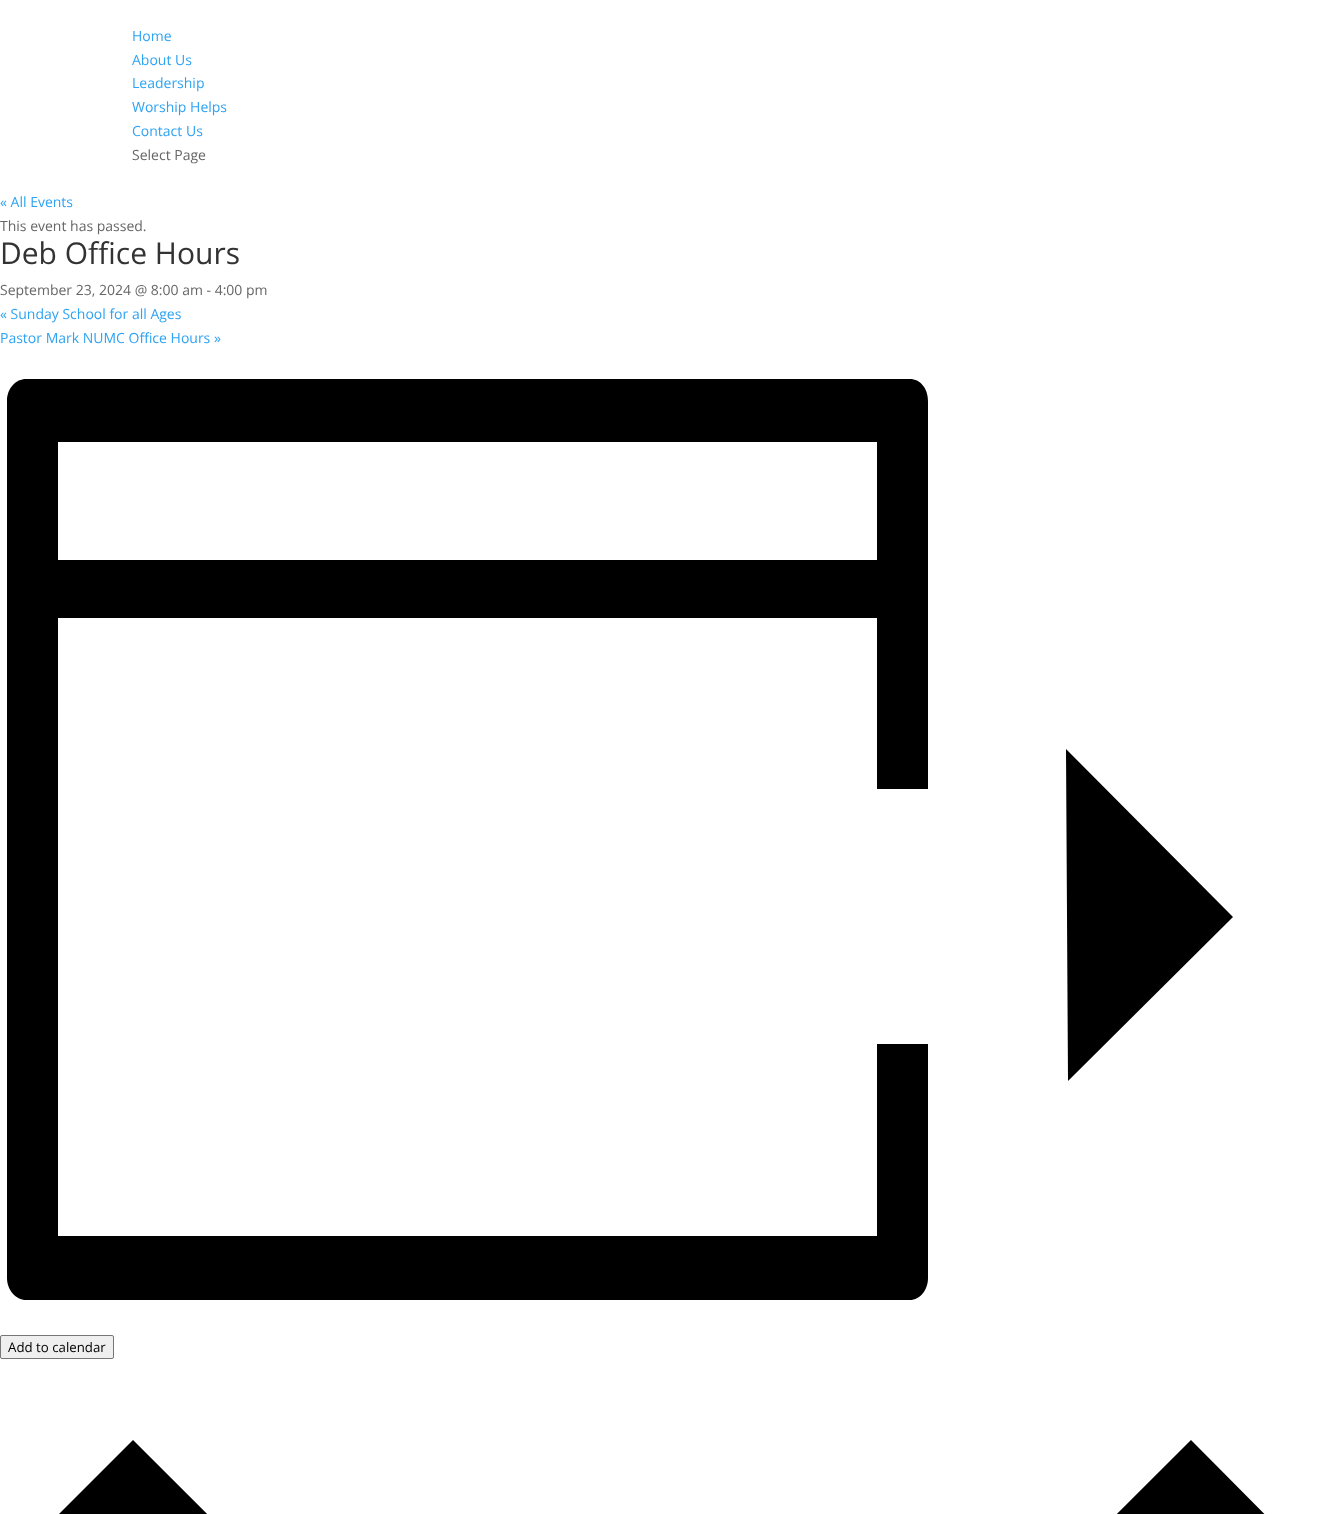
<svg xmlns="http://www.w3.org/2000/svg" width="1324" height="1514">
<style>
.a{font:14px Open Sans;fill:#2ea3f2}
.b{font:14px Open Sans;fill:#666}
.c{font:30px Open Sans;fill:#333}
.d{font:13.25px Open Sans;fill:#000}
</style>
<rect width="100%" height="100%" fill="#fff"/>
<path fill="#000" fill-rule="evenodd" d="M7 401v877c0 12 9 22 19 22h884c10 0 18-10 18-22v-877c0-13-8-22-18-22h-884c-10 0-19 9-19 22zm921 388h-51v-171h-819v618h819v-192h51zm-870-347h819v118h-819z"/>
<path fill="#000" d="M1180 916h-702m588-167l167 168l-165 164"/>
<rect fill="#efefef" stroke="#767676" x="0.5" y="1335.5" width="113" height="23" rx="1.5"/>
<path fill="#000" fill-rule="evenodd" d="M133 1440l529 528l529-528l126 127l-655 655l-655-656z"/>
<text class="a" x="132" y="41">Home</text>
<text class="a" x="132" y="65">About Us</text>
<text class="a" x="132" y="88">Leadership</text>
<text class="a" x="132" y="112">Worship Helps</text>
<text class="a" x="132" y="136">Contact Us</text>
<text class="b" x="132" y="160">Select Page</text>
<text class="a" x="0" y="207">« All Events</text>
<text class="b" x="0" y="231">This event has passed.</text>
<text class="c" x="0" y="264">Deb Office Hours</text>
<text class="b" x="0" y="295">September 23, 2024 @ 8:00 am - 4:00 pm</text>
<text class="a" x="0" y="319">« Sunday School for all Ages</text>
<text class="a" x="0" y="343">Pastor Mark NUMC Office Hours »</text>
<text class="d" x="8" y="1352">Add to calendar</text>
</svg>
